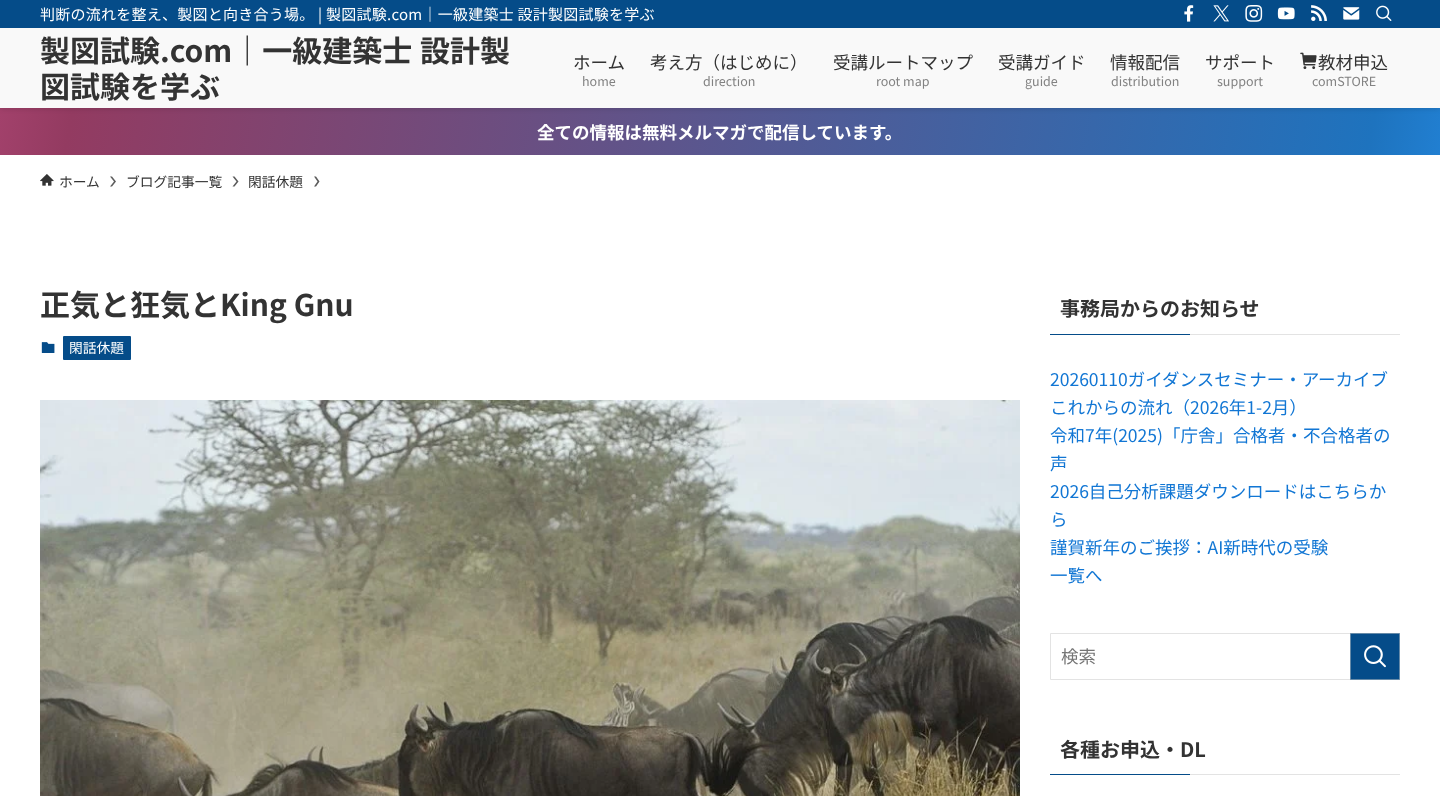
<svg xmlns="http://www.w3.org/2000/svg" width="1440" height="796">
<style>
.a{font:15px Noto Sans JP;letter-spacing:0.25px;fill:#fff}
.b{font:bold 30px Noto Sans JP;fill:#333}
.c{font:17.5px Noto Sans JP;fill:#333}
.d{font:12.5px Noto Sans JP;fill:#828282}
.e{font:bold 17.5px Noto Sans JP;fill:#fff}
.f{font:13.75px Noto Sans JP;fill:#333}
.g{font:13.75px Noto Sans JP;fill:#fff}
.h{font:bold 20px Noto Sans JP;fill:#333}
.i{font:17.5px Noto Sans JP;fill:#1176d4}
.j{font:17.5px Noto Sans JP;fill:#757575}
</style>
<defs>
<linearGradient id="g1" gradientUnits="userSpaceOnUse" x1="18" y1="7.4" x2="1422" y2="255"><stop offset="0" stop-color="#a2416b"/><stop offset="0.05" stop-color="#933b61"/><stop offset="0.95" stop-color="#1e73be"/><stop offset="1" stop-color="#217fd1"/></linearGradient>
</defs>
<rect width="100%" height="100%" fill="#fff"/>
<path fill="url(#g1)" d="M0 108h1440v47H0z"/>
<path fill="#0000001f" filter="blur(2.5px)" d="M0 1h1440v108H0z"/>
<path fill="#f9f9f9" d="M0 28h1440v80H0z"/>
<path fill="#054c89" d="M0 0h1440v28H0z"/>
<image href="1.png" x="1184" y="5" width="10" height="17"/>
<image href="2.png" x="1213" y="5" width="16" height="17"/>
<image href="3.png" x="1245" y="5" width="18" height="17"/>
<image href="4.png" x="1277" y="7" width="18" height="13"/>
<image href="5.png" x="1311" y="5" width="16" height="16"/>
<image href="6.png" x="1343" y="7" width="17" height="13"/>
<image href="7.png" x="1376" y="5" width="16" height="16"/>
<image href="8.png" x="1300" y="52" width="17" height="18"/>
<image href="9.png" x="40" y="174" width="14" height="12"/>
<path fill="#5c5c5c" d="M112 176.5h-2l4 5l-4 5h2l4-5z"/>
<path fill="#5c5c5c" d="M234.5 176.5h-2l4 5l-4 5h2l4-5z"/>
<path fill="#5c5c5c" d="M316 176.5h-2l3.5 5l-3.5 5h2l3.5-5z"/>
<image href="10.png" x="41" y="342" width="14" height="11"/>
<rect fill="#054c89" x="63" y="336" width="68" height="24" rx="1"/>
<image href="11.png" x="40" y="400" width="980" height="396"/>
<path fill="#054c89" d="M1050 334h140v1H1050z"/>
<path fill="#e3e3e3" d="M1190 334h210v1H1190z"/>
<path fill="none" stroke="#e3e3e3" d="M1050.5 633.5h349v46H1050.5z"/>
<path fill="#054c89" stroke="#668aa8" d="M1350.5 633.5h49v46H1350.5z"/>
<image href="12.png" x="1364" y="645" width="22" height="23"/>
<path fill="#054c89" d="M1050 774h140v1H1050z"/>
<path fill="#e3e3e3" d="M1190 774h210v1H1190z"/>
<text class="a" x="40" y="20">判断の流れを整え、製図と向き合う場。 | 製図試験.com｜一級建築士 設計製図試験を学ぶ</text>
<text class="b" x="40" y="62" word-spacing="1">製図試験.com｜一級建築士 設計製</text>
<text class="b" x="40" y="98">図試験を学ぶ</text>
<text class="c" x="573" y="69">ホーム</text>
<text class="d" x="582" y="86">home</text>
<text class="c" x="650" y="69">考え方（はじめに）</text>
<text class="d" x="703" y="86">direction</text>
<text class="c" x="833" y="69">受講ルートマップ</text>
<text class="d" x="876" y="86">root map</text>
<text class="c" x="998" y="69">受講ガイド</text>
<text class="d" x="1025" y="86">guide</text>
<text class="c" x="1110" y="69">情報配信</text>
<text class="d" x="1111" y="86">distribution</text>
<text class="c" x="1205" y="69">サポート</text>
<text class="d" x="1217" y="86">support</text>
<text class="c" x="1318" y="69">教材申込</text>
<text class="d" x="1312" y="86">comSTORE</text>
<text class="e" x="537" y="139">全ての情報は無料メルマガで配信しています。</text>
<text class="f" x="59" y="187">ホーム</text>
<text class="f" x="126" y="187">ブログ記事一覧</text>
<text class="f" x="248" y="187">閑話休題</text>
<text class="b" x="40" y="316">正気と狂気とKing Gnu</text>
<text class="g" x="69" y="353">閑話休題</text>
<text class="h" x="1060" y="316">事務局からのお知らせ</text>
<text class="i" x="1050" y="386">20260110ガイダンスセミナー・アーカイブ</text>
<text class="i" x="1050" y="414">これからの流れ（2026年1-2月）</text>
<text class="i" x="1050" y="442">令和7年(2025)「庁舎」合格者・不合格者の</text>
<text class="i" x="1050" y="470">声</text>
<text class="i" x="1050" y="498">2026自己分析課題ダウンロードはこちらか</text>
<text class="i" x="1050" y="526">ら</text>
<text class="i" x="1050" y="554">謹賀新年のご挨拶：AI新時代の受験</text>
<text class="i" x="1050" y="582">一覧へ</text>
<text class="j" x="1061" y="663">検索</text>
<text class="h" x="1060" y="757">各種お申込・DL</text>
</svg>
